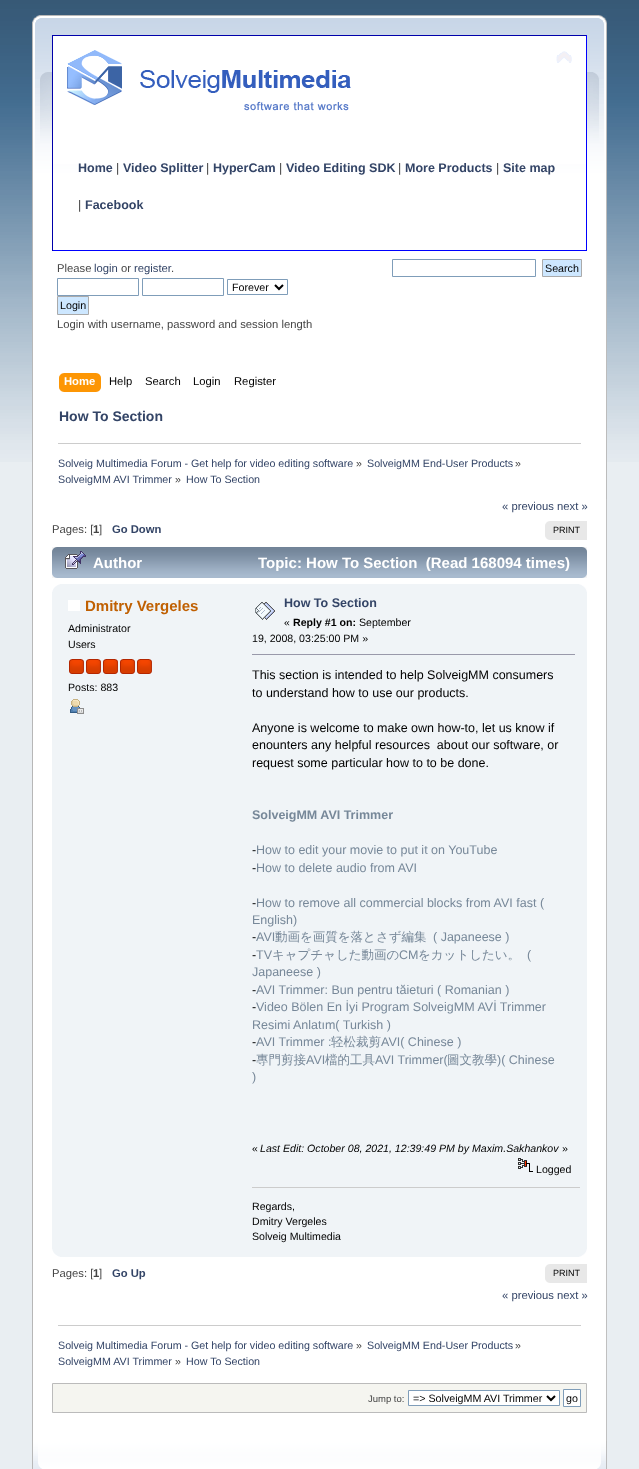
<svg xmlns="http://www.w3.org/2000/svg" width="639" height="1469">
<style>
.a{font:bold 12.5px Liberation Sans;fill:#346}
.b{font:12.5px Liberation Sans;fill:#444}
.c{font:11.25px Liberation Sans;fill:#444}
.d{font:11.25px Liberation Sans;fill:#346}
.e{font:10.7px Liberation Sans;fill:#000}
.f{font:bold 11.25px Liberation Sans;fill:#fff}
.g{font:11.25px Liberation Sans;fill:#000}
.h{font:bold 14px Liberation Sans;fill:#346}
.i{font:10.7px Liberation Sans;fill:#346}
.j{font:10.7px Liberation Sans;fill:#444}
.k{font:bold 11.25px Liberation Sans;fill:#444}
.l{font:bold 11.25px Liberation Sans;fill:#346}
.m{font:9px Liberation Sans;fill:#000}
.n{font:bold 15px Liberation Sans;fill:#fff}
.o{font:bold 15px Liberation Sans;fill:#c06002}
.p{font:10.6px Liberation Sans;fill:#000}
.q{font:bold 10.6px Liberation Sans;fill:#000}
.r{font:12.5px Liberation Sans;fill:#000}
.s{font:bold 12.5px Liberation Sans;fill:#789}
.t{font:12.5px Liberation Sans;fill:#789}
.u{font:500 12.5px WenQuanYi Zen Hei;fill:#789}
.v{font:italic 10.6px Liberation Sans;fill:#000}
.w{font:9.5px Liberation Sans;fill:#444}
</style>
<rect width="100%" height="100%" fill="#e9eef2"/>
<image href="1.png" x="0" y="0" width="639" height="462"/>
<image href="2.png" x="32" y="15" width="561" height="484"/>
<image href="3.png" x="593" y="15" width="14" height="484"/>
<path fill="#fff" d="M53 36h533v128H53z"/>
<path fill="#00a" d="M52 35h535v1H52z"/>
<path fill="#00f" d="M586 35h1v216H586z"/>
<path fill="#00f" d="M52 250h535v1H52z"/>
<path fill="#00a" d="M52 35h1v216H52z"/>
<image href="4.png" x="67" y="50" width="284" height="61"/>
<image href="5.png" x="556" y="51" width="16" height="12"/>
<path fill="none" stroke="#7f9db9" d="M57.5 278.5h81v17H57.5z"/>
<path fill="none" stroke="#7f9db9" d="M142.5 278.5h81v17H142.5z"/>
<path fill="none" stroke="#7f9db9" d="M227.5 279.5h60v15H227.5z"/>
<path fill="none" stroke="#000" stroke-width="2" d="M275 285l4 4l4-4"/>
<path fill="#cde7ff" stroke="#aaa" d="M57.5 296.5h31v18H57.5z"/>
<path fill="none" stroke="#7f9db9" d="M392.5 259.5h143v17H392.5z"/>
<path fill="#cde7ff" stroke="#aaa" d="M542.5 259.5h39v17H542.5z"/>
<image href="6.png" x="64" y="373" width="37" height="19"/>
<image href="7.png" x="59" y="373" width="5" height="19"/>
<path fill="#ccc" d="M58 443h523v1H58z"/>
<path fill="#fff" d="M33 499h573v942H33z"/>
<path fill="#b7b7b7" d="M32 499h1v942H32z"/>
<path fill="#c0c0c0" d="M606 499h1v942H606z"/>
<image href="8.png" x="545" y="521" width="35" height="19"/>
<path fill="#e8e8e8" d="M580 521h7v19H580z"/>
<image href="9.png" x="52" y="547" width="530" height="31"/>
<image href="10.png" x="582" y="547" width="5" height="31"/>
<image href="11.png" x="65" y="551" width="21" height="18"/>
<path fill="#f0f4f7" d="M52 584h535v673H52z"/>
<image href="12.png" x="52" y="584" width="8" height="8"/>
<image href="13.png" x="579" y="584" width="8" height="8"/>
<path fill="#fff" d="M68 600h12v11H68z"/>
<image href="14.png" x="69" y="659" width="15" height="15"/>
<image href="14.png" x="86" y="659" width="15" height="15"/>
<image href="14.png" x="103" y="659" width="15" height="15"/>
<image href="14.png" x="120" y="659" width="15" height="15"/>
<image href="14.png" x="137" y="659" width="15" height="15"/>
<image href="15.png" x="70" y="699" width="14" height="15"/>
<image href="16.png" x="255" y="602" width="20" height="18"/>
<path fill="#99a" d="M252 654h323v1H252z"/>
<image href="17.png" x="518" y="1158" width="15" height="14"/>
<path fill="#ccc" d="M252 1187h328v1H252z"/>
<image href="18.png" x="52" y="1249" width="8" height="8"/>
<image href="19.png" x="579" y="1249" width="8" height="8"/>
<image href="8.png" x="545" y="1264" width="35" height="19"/>
<path fill="#e8e8e8" d="M580 1264h7v19H580z"/>
<path fill="#ccc" d="M58 1325h523v1H58z"/>
<path fill="#f5f5f0" stroke="#bbb" d="M52.5 1383.5h534v29H52.5z"/>
<path fill="#fff" stroke="#7f9db9" d="M408.5 1390.5h151v15H408.5z"/>
<path fill="none" stroke="#000" stroke-width="2" d="M547 1396l4 4l4-4"/>
<path fill="#fff" stroke="#7f9db9" d="M563.5 1389.5h17v17H563.5z"/>
<image href="20.png" x="32" y="1441" width="565" height="28"/>
<image href="21.png" x="597" y="1441" width="10" height="28"/>
<text class="a" x="78" y="172">Home</text>
<text class="b" x="116" y="172">|</text>
<text class="a" x="123" y="172">Video Splitter</text>
<text class="b" x="206" y="172">|</text>
<text class="a" x="213" y="172">HyperCam</text>
<text class="b" x="279" y="172">|</text>
<text class="a" x="286" y="172">Video Editing SDK</text>
<text class="b" x="398" y="172">|</text>
<text class="a" x="405" y="172">More Products</text>
<text class="b" x="496" y="172">|</text>
<text class="a" x="503" y="172">Site map</text>
<text class="b" x="78" y="209">|</text>
<text class="a" x="85" y="209">Facebook</text>
<text class="c" x="57" y="272">Please</text>
<text class="d" x="94" y="272">login</text>
<text class="c" x="121" y="272">or</text>
<text class="d" x="134" y="272">register</text>
<text class="c" x="171" y="272">.</text>
<text class="e" x="232" y="291">Forever</text>
<text class="e" x="60" y="309">Login</text>
<text class="c" x="57" y="328">Login with username, password and session length</text>
<text class="e" x="545" y="272">Search</text>
<text class="f" x="64" y="385">Home</text>
<text class="g" x="109" y="385">Help</text>
<text class="g" x="145" y="385">Search</text>
<text class="g" x="193" y="385">Login</text>
<text class="g" x="234" y="385">Register</text>
<text class="h" x="59" y="421">How To Section</text>
<text class="i" x="58" y="467">Solveig Multimedia Forum - Get help for video editing software</text>
<text class="j" x="356" y="467">»</text>
<text class="i" x="367" y="467">SolveigMM End-User Products</text>
<text class="j" x="515" y="467">»</text>
<text class="i" x="58" y="483">SolveigMM AVI Trimmer</text>
<text class="j" x="175" y="483">»</text>
<text class="i" x="186" y="483">How To Section</text>
<text class="d" x="502" y="510">« previous next »</text>
<text class="c" x="52" y="533">Pages: [</text>
<text class="k" x="93" y="533">1</text>
<text class="c" x="99" y="533">]</text>
<text class="l" x="112" y="533">Go Down</text>
<text class="m" x="553" y="533">PRINT</text>
<text class="n" x="93" y="568">Author</text>
<text class="n" xml:space="preserve" x="258" y="568">Topic: How To Section  (Read 168094 times)</text>
<text class="o" x="85" y="611">Dmitry Vergeles</text>
<text class="p" x="68" y="632">Administrator</text>
<text class="p" x="68" y="648">Users</text>
<text class="p" x="68" y="691">Posts: 883</text>
<text class="a" x="284" y="607">How To Section</text>
<text class="p" x="284" y="626">«</text>
<text class="q" x="293" y="626">Reply #1 on:</text>
<text class="p" x="359" y="626">September</text>
<text class="p" x="252" y="642">19, 2008, 03:25:00 PM »</text>
<text class="r" x="252" y="679">This section is intended to help SolveigMM consumers</text>
<text class="r" x="252" y="697">to understand how to use our products.</text>
<text class="r" x="252" y="732">Anyone is welcome to make own how-to, let us know if</text>
<text class="r" xml:space="preserve" x="252" y="749">enounters any helpful resources  about our software, or</text>
<text class="r" x="252" y="767">request some particular how to to be done.</text>
<text class="s" x="252" y="819">SolveigMM AVI Trimmer</text>
<text class="r" x="252" y="854">-</text>
<text class="t" x="256" y="854">How to edit your movie to put it on YouTube</text>
<text class="r" x="252" y="872">-</text>
<text class="t" x="256" y="872">How to delete audio from AVI</text>
<text class="r" x="252" y="907">-</text>
<text class="t" x="256" y="907">How to remove all commercial blocks from AVI fast (</text>
<text class="t" x="252" y="924">English)</text>
<text class="r" x="252" y="941">-</text>
<text class="t" x="256" y="941">AVI</text>
<text class="u" x="275" y="941">動画を画質を落とさず編集</text>
<text class="t" x="433" y="941">( Japaneese )</text>
<text class="r" x="252" y="959">-</text>
<text class="t" x="256" y="959">TV</text>
<text class="u" x="272" y="959">キャプチャした動画の</text>
<text class="t" x="399" y="959">CM</text>
<text class="u" x="418" y="959">をカットしたい。</text>
<text class="t" x="527" y="959">(</text>
<text class="t" x="252" y="976">Japaneese )</text>
<text class="r" x="252" y="994">-</text>
<text class="t" x="256" y="994">AVI Trimmer: Bun pentru tăieturi ( Romanian )</text>
<text class="r" x="252" y="1011">-</text>
<text class="t" x="256" y="1011">Video Bölen En İyi Program SolveigMM AVİ Trimmer</text>
<text class="t" x="252" y="1029">Resimi Anlatım( Turkish )</text>
<text class="r" x="252" y="1046">-</text>
<text class="t" x="256" y="1046">AVI Trimmer :</text>
<text class="u" x="331" y="1046">轻松裁剪</text>
<text class="t" x="381" y="1046">AVI( Chinese )</text>
<text class="r" x="252" y="1064">-</text>
<text class="u" x="256" y="1064">專門剪接</text>
<text class="t" x="306" y="1064">AVI</text>
<text class="u" x="325" y="1064">檔的工具</text>
<text class="t" x="375" y="1064">AVI Trimmer(</text>
<text class="u" x="447" y="1064">圖文教學</text>
<text class="t" x="497" y="1064">)( Chinese</text>
<text class="t" x="252" y="1081">)</text>
<text class="p" x="252" y="1152">«</text>
<text class="v" x="260" y="1152">Last Edit: October 08, 2021, 12:39:49 PM by Maxim.Sakhankov</text>
<text class="p" x="562" y="1152">»</text>
<text class="p" x="536" y="1173">Logged</text>
<text class="p" x="252" y="1210">Regards,</text>
<text class="p" x="252" y="1225">Dmitry Vergeles</text>
<text class="p" x="252" y="1240">Solveig Multimedia</text>
<text class="c" x="52" y="1277">Pages: [</text>
<text class="k" x="93" y="1277">1</text>
<text class="c" x="99" y="1277">]</text>
<text class="l" x="112" y="1277">Go Up</text>
<text class="m" x="553" y="1276">PRINT</text>
<text class="d" x="502" y="1299">« previous next »</text>
<text class="i" x="58" y="1349">Solveig Multimedia Forum - Get help for video editing software</text>
<text class="j" x="356" y="1349">»</text>
<text class="i" x="367" y="1349">SolveigMM End-User Products</text>
<text class="j" x="515" y="1349">»</text>
<text class="i" x="58" y="1365">SolveigMM AVI Trimmer</text>
<text class="j" x="175" y="1365">»</text>
<text class="i" x="186" y="1365">How To Section</text>
<text class="w" x="368" y="1402">Jump to:</text>
<text class="e" x="413" y="1402">=&gt; SolveigMM AVI Trimmer</text>
<text class="e" x="566" y="1402">go</text>
</svg>
